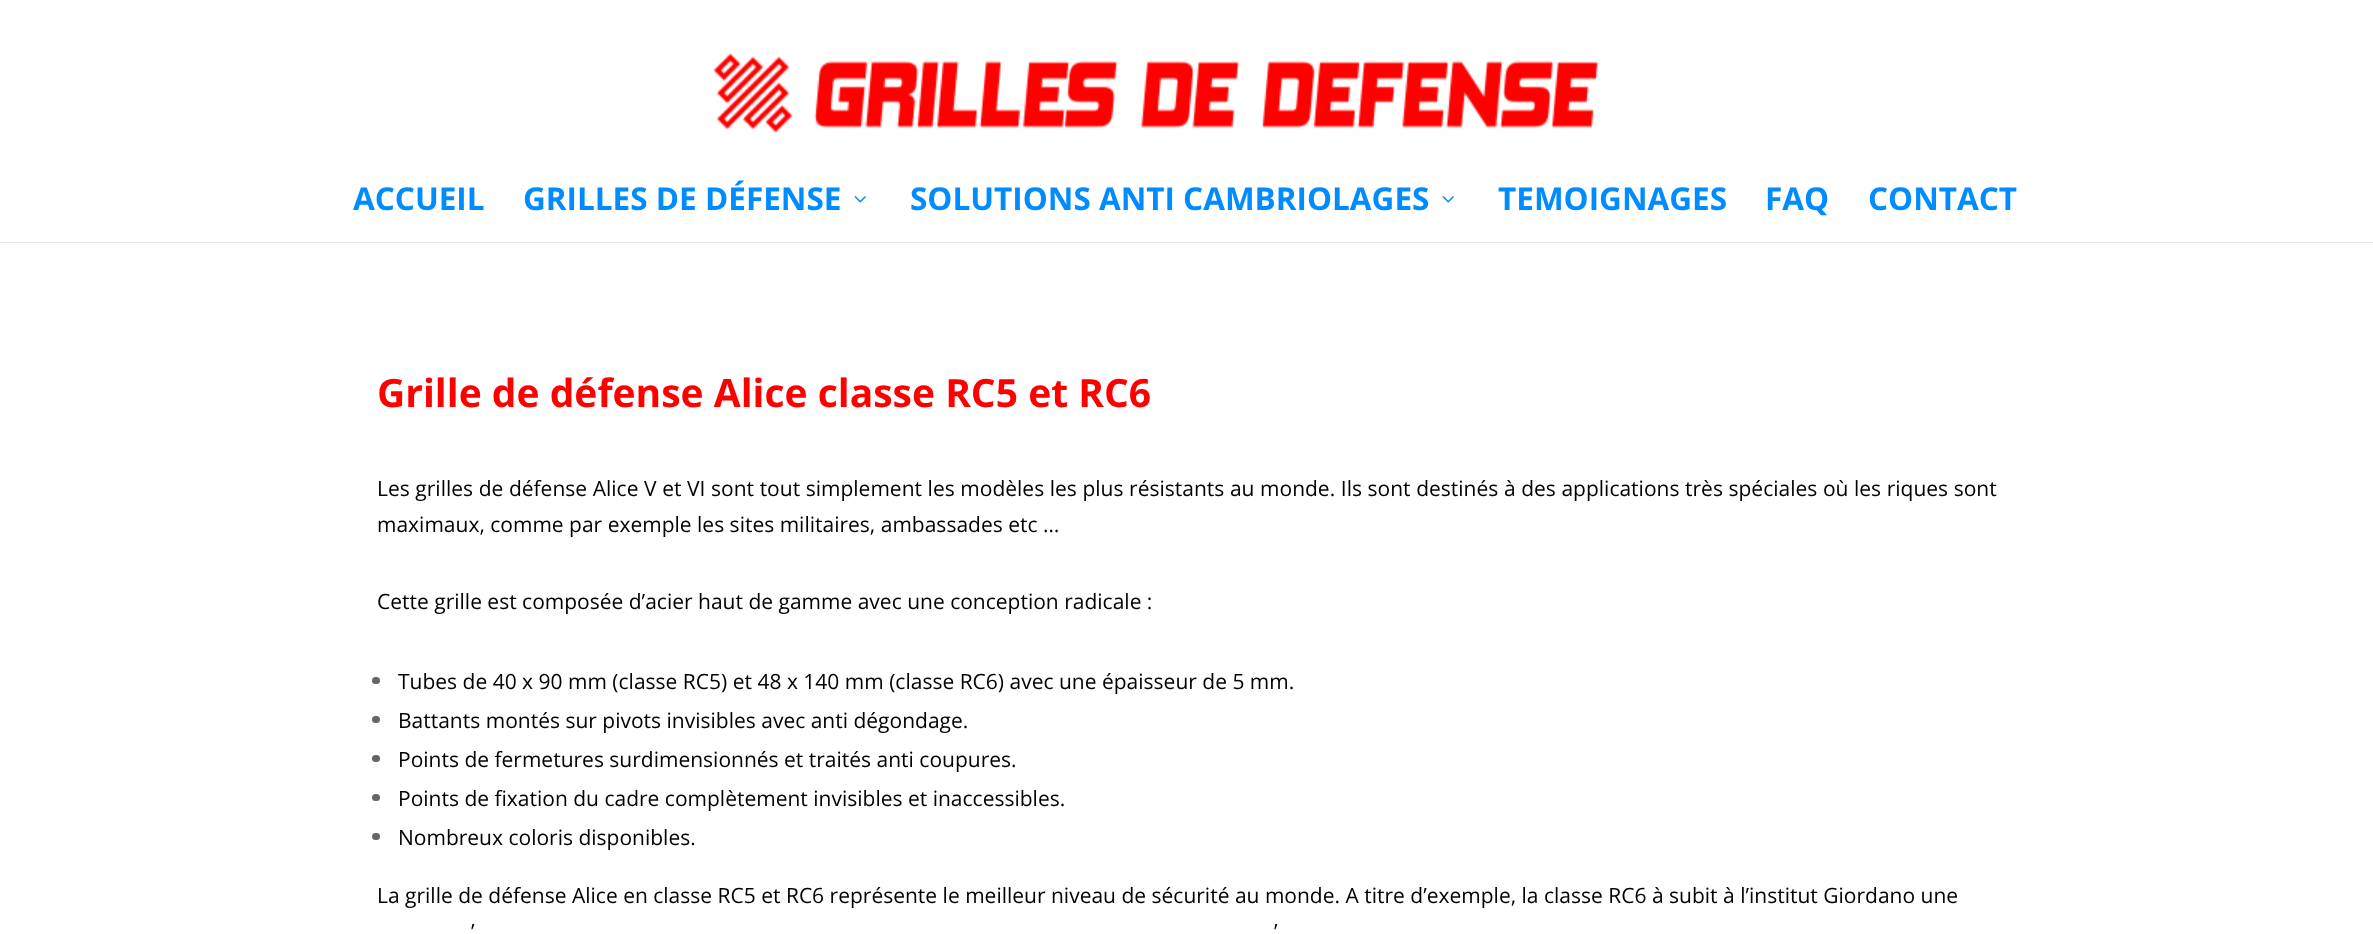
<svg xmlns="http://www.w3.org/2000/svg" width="2373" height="934">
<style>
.a{font:bold 31.5px Open Sans;fill:#008cff}
.b{font:bold 39px Open Sans;fill:#f00}
.c{font:21px Open Sans;fill:#000}
</style>
<rect width="100%" height="100%" fill="#fff"/>
<path fill="#e6e6e6" d="M0 242h2373v1H0z"/>
<image href="1.png" x="713" y="53" width="885" height="80"/>
<image href="2.png" x="854" y="196" width="12" height="7"/>
<image href="2.png" x="1442" y="196" width="12" height="7"/>
<rect fill="#666" x="372" y="677" width="8" height="7" rx="3.5"/>
<rect fill="#666" x="372" y="716" width="8" height="7" rx="3.5"/>
<rect fill="#666" x="372" y="755" width="8" height="7" rx="3.5"/>
<rect fill="#666" x="372" y="794" width="8" height="7" rx="3.5"/>
<rect fill="#666" x="372" y="833" width="8" height="7" rx="3.5"/>
<text class="a" x="353" y="210">ACCUEIL</text>
<text class="a" x="523" y="210">GRILLES DE DÉFENSE</text>
<text class="a" x="910" y="210">SOLUTIONS ANTI CAMBRIOLAGES</text>
<text class="a" x="1498" y="210">TEMOIGNAGES</text>
<text class="a" x="1765" y="210">FAQ</text>
<text class="a" x="1868" y="210">CONTACT</text>
<text class="b" x="377" y="407">Grille de défense Alice classe RC5 et RC6</text>
<text class="c" x="377" y="496" word-spacing="0.15">Les grilles de défense Alice V et VI sont tout simplement les modèles les plus résistants au monde. Ils sont destinés à des applications très spéciales où les riques sont</text>
<text class="c" x="377" y="532">maximaux, comme par exemple les sites militaires, ambassades etc …</text>
<text class="c" x="377" y="609">Cette grille est composée d’acier haut de gamme avec une conception radicale :</text>
<text class="c" x="398" y="689">Tubes de 40 x 90 mm (classe RC5) et 48 x 140 mm (classe RC6) avec une épaisseur de 5 mm.</text>
<text class="c" x="398" y="728">Battants montés sur pivots invisibles avec anti dégondage.</text>
<text class="c" x="398" y="767">Points de fermetures surdimensionnés et traités anti coupures.</text>
<text class="c" x="398" y="806">Points de fixation du cadre complètement invisibles et inaccessibles.</text>
<text class="c" x="398" y="845">Nombreux coloris disponibles.</text>
<text class="c" x="377" y="903">La grille de défense Alice en classe RC5 et RC6 représente le meilleur niveau de sécurité au monde. A titre d’exemple, la classe RC6 à subit à l’institut Giordano une</text>
<text class="c" x="471" y="939">’</text>
<text class="c" x="1274" y="939">’</text>
</svg>
